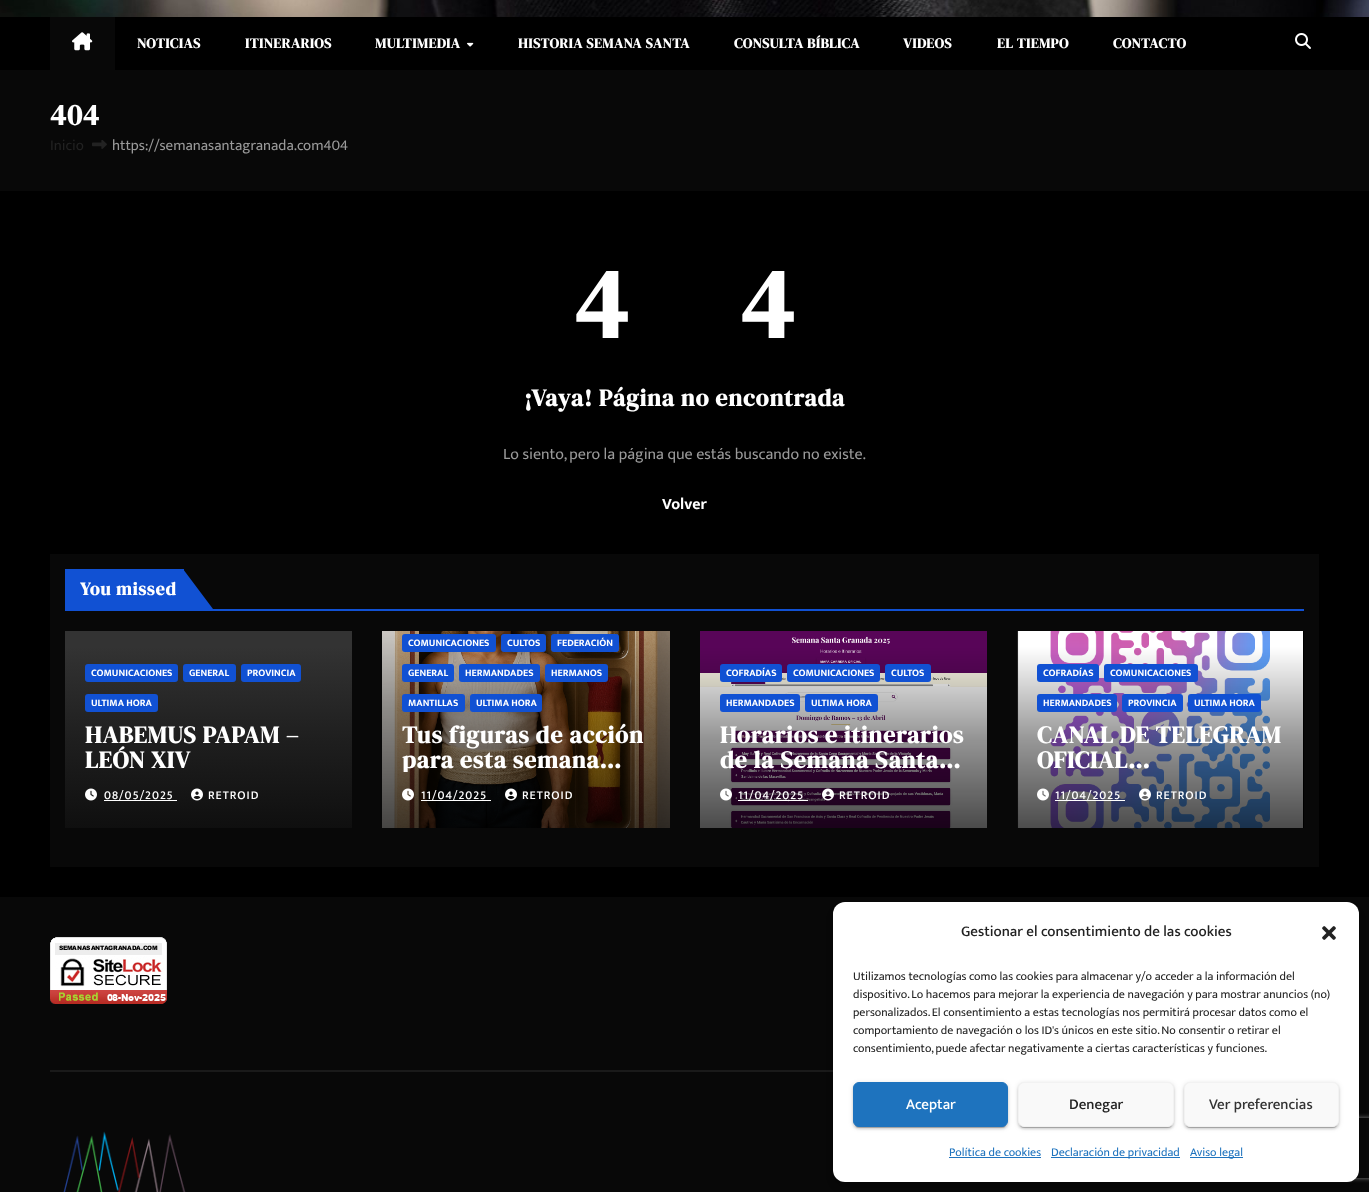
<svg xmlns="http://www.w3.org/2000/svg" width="1369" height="1192">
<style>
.a{font:bold 14px DM Serif Display;letter-spacing:0.5px;fill:#fff}
.b{font:bold 30px DM Serif Display;letter-spacing:0.8px;fill:#fff}
.c{font:15px Mukta Vaani;fill:#222}
.d{font:15px Mukta Vaani;fill:#999}
.e{font:bold 100px DM Serif Display;letter-spacing:0.8px;fill:#fff}
.f{font:bold 24px DM Serif Display;letter-spacing:0.8px;fill:#fff}
.g{font:16px Mukta Vaani;fill:#999}
.h{font:bold 16px Mukta Vaani;fill:#fff}
.i{font:bold 18px DM Serif Display;letter-spacing:0.8px;fill:#fff}
.j{font:bold 10px Mukta Vaani;fill:#fff}
.k{font:500 12px Mukta Vaani;letter-spacing:1px;fill:#fff}
.l{font:500 15px Mukta Vaani;fill:#222}
.m{font:12px Mukta Vaani;fill:#222}
.n{font:500 15px Mukta Vaani;fill:#fff}
.o{font:500 15px Mukta Vaani;fill:#333}
.p{font:12px Mukta Vaani;fill:#1e73be}
</style>
<defs>
<linearGradient id="g1" gradientUnits="userSpaceOnUse" x1="209" y1="647" x2="209" y2="828"><stop offset="0" stop-color="#333"/><stop offset="0.5" stop-color="#1f1f1f"/><stop offset="1" stop-color="#0f0f0f"/></linearGradient>
<clipPath id="clip1"><path d="M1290 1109h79v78h-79zm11 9h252c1 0 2 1 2 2v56c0 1-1 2-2 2h-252c-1 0-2-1-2-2v-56c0-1 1-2 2-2z" clip-rule="evenodd"/></clipPath>
<clipPath id="clip2"><path d="M402 722h248v50H402z"/></clipPath>
</defs>
<rect width="100%" height="100%" fill="#000"/>
<image href="1.png" x="0" y="0" width="1369" height="17"/>
<path fill="#080808" d="M50 17h65v53H50z"/>
<image href="2.png" x="72" y="32" width="21" height="19"/>
<image href="3.png" x="467" y="42" width="7" height="5"/>
<image href="4.png" x="1295" y="33" width="16" height="16"/>
<path fill="#080808" d="M0 70h1369v121H0z"/>
<image href="5.png" x="92" y="140" width="15" height="9"/>
<path fill="#080808" d="M50 554h1269v313H50z"/>
<path fill="#1151d3" d="M65 609h1239v2H65z"/>
<path fill="#1151d3" d="M65 569h119v40H65z"/>
<path fill="#1151d3" d="M183 609v-40l30 40z"/>
<path fill="#333" d="M65 631h287v16H65z"/>
<path fill="url(#g1)" d="M65 647h287v181H65z"/>
<rect fill="#1151d3" x="85" y="664" width="93" height="18" rx="3"/>
<rect fill="#1151d3" x="183" y="664" width="53" height="18" rx="3"/>
<rect fill="#1151d3" x="241" y="664" width="60" height="18" rx="3"/>
<rect fill="#1151d3" x="85" y="694" width="73" height="18" rx="3"/>
<image href="6.png" x="85" y="788" width="12" height="13"/>
<path fill="#fff" d="M104 800h73v1H104z"/>
<image href="7.png" x="191" y="788" width="12" height="13"/>
<image href="8.png" x="382" y="631" width="288" height="197"/>
<rect fill="#1151d3" x="402" y="634" width="94" height="18" rx="3"/>
<rect fill="#1151d3" x="501" y="634" width="45" height="18" rx="3"/>
<rect fill="#1151d3" x="551" y="634" width="68" height="18" rx="3"/>
<rect fill="#1151d3" x="402" y="664" width="52" height="18" rx="3"/>
<rect fill="#1151d3" x="459" y="664" width="81" height="18" rx="3"/>
<rect fill="#1151d3" x="545" y="664" width="63" height="18" rx="3"/>
<rect fill="#1151d3" x="402" y="694" width="63" height="18" rx="3"/>
<rect fill="#1151d3" x="470" y="694" width="72" height="18" rx="3"/>
<image href="9.png" x="402" y="788" width="12" height="13"/>
<path fill="#fff" d="M421 800h70v1H421z"/>
<image href="10.png" x="505" y="788" width="12" height="13"/>
<image href="11.png" x="700" y="631" width="287" height="197"/>
<rect fill="#1151d3" x="720" y="664" width="62" height="18" rx="3"/>
<rect fill="#1151d3" x="787" y="664" width="93" height="18" rx="3"/>
<rect fill="#1151d3" x="885" y="664" width="46" height="18" rx="3"/>
<rect fill="#1151d3" x="720" y="694" width="80" height="18" rx="3"/>
<rect fill="#1151d3" x="805" y="694" width="73" height="18" rx="3"/>
<image href="12.png" x="720" y="788" width="12" height="13"/>
<path fill="#fff" d="M738 800h70v1H738z"/>
<image href="13.png" x="822" y="788" width="12" height="13"/>
<image href="14.png" x="1017" y="631" width="287" height="197"/>
<rect fill="#1151d3" x="1037" y="664" width="62" height="18" rx="3"/>
<rect fill="#1151d3" x="1104" y="664" width="94" height="18" rx="3"/>
<rect fill="#1151d3" x="1037" y="694" width="80" height="18" rx="3"/>
<rect fill="#1151d3" x="1122" y="694" width="61" height="18" rx="3"/>
<rect fill="#1151d3" x="1188" y="694" width="73" height="18" rx="3"/>
<image href="15.png" x="1037" y="788" width="12" height="13"/>
<path fill="#fff" d="M1055 800h70v1H1055z"/>
<image href="16.png" x="1139" y="788" width="12" height="13"/>
<path fill="#080808" d="M0 897h1369v295H0z"/>
<image href="17.png" x="50" y="937" width="117" height="67"/>
<path fill="#1a1a1a" d="M50 1070h783v2H50z"/>
<image href="18.png" x="63" y="1131" width="123" height="61"/>
<rect fill="#0000003b" filter="blur(3px)" x="833" y="908" width="526" height="280" rx="12"/>
<g clip-path="url(#clip1)">
<rect fill="#808080" filter="blur(2.5px)" x="1299" y="1118" width="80" height="60" rx="2"/>
</g>
<rect fill="#fff" x="833" y="902" width="526" height="280" rx="12"/>
<image href="19.png" x="1322" y="926" width="14" height="14"/>
<rect fill="#0000001f" filter="blur(2.5px)" x="853" y="1083" width="155" height="45" rx="6"/>
<rect fill="#00000033" filter="blur(0.5px)" x="855" y="1087" width="151" height="41" rx="4"/>
<rect fill="#00000024" filter="blur(1px)" x="853" y="1084" width="155" height="45" rx="6"/>
<rect fill="#1e73be" stroke="#1e73be" x="853.5" y="1082.5" width="154" height="44" rx="5.5"/>
<rect fill="#0000001f" filter="blur(2.5px)" x="1018" y="1083" width="156" height="45" rx="6"/>
<rect fill="#00000033" filter="blur(0.5px)" x="1020" y="1087" width="152" height="41" rx="4"/>
<rect fill="#00000024" filter="blur(1px)" x="1018" y="1084" width="156" height="45" rx="6"/>
<rect fill="#f9f9f9" stroke="#f2f2f2" x="1018.5" y="1082.5" width="155" height="44" rx="5.5"/>
<rect fill="#0000001f" filter="blur(2.5px)" x="1184" y="1083" width="155" height="45" rx="6"/>
<rect fill="#00000033" filter="blur(0.5px)" x="1186" y="1087" width="151" height="41" rx="4"/>
<rect fill="#00000024" filter="blur(1px)" x="1184" y="1084" width="155" height="45" rx="6"/>
<rect fill="#f9f9f9" stroke="#f2f2f2" x="1184.5" y="1082.5" width="154" height="44" rx="5.5"/>
<path fill="#1e73be" d="M949 1157h92v1H949z"/>
<path fill="#1e73be" d="M1051 1157h129v1H1051z"/>
<path fill="#1e73be" d="M1190 1157h53v1H1190z"/>
<text class="a" x="137" y="48">NOTICIAS</text>
<text class="a" x="245" y="48">ITINERARIOS</text>
<text class="a" x="375" y="48">MULTIMEDIA</text>
<text class="a" x="518" y="48">HISTORIA SEMANA SANTA</text>
<text class="a" x="734" y="48">CONSULTA BÍBLICA</text>
<text class="a" x="903" y="48">VIDEOS</text>
<text class="a" x="997" y="48">EL TIEMPO</text>
<text class="a" x="1113" y="48">CONTACTO</text>
<text class="b" x="50" y="125">404</text>
<text class="c" x="50" y="150">Inicio</text>
<text class="d" x="112" y="150">https://semanasantagranada.com404</text>
<text class="e" x="574" y="338">4</text>
<text class="e" x="740" y="338">4</text>
<text class="f" x="524" y="406">¡Vaya! Página no encontrada</text>
<text class="g" x="503" y="459">Lo siento, pero la página que estás buscando no existe.</text>
<text class="h" x="662" y="509">Volver</text>
<text class="i" x="80" y="595">You missed</text>
<text class="j" x="91" y="676">COMUNICACIONES</text>
<text class="j" x="189" y="676">GENERAL</text>
<text class="j" x="247" y="676">PROVINCIA</text>
<text class="j" x="91" y="706">ULTIMA HORA</text>
<text class="f" x="85" y="743">HABEMUS PAPAM –</text>
<text class="f" x="85" y="768">LEÓN XIV</text>
<text class="k" x="104" y="799">08/05/2025</text>
<text class="k" x="208" y="799">RETROID</text>
<text class="j" x="408" y="646">COMUNICACIONES</text>
<text class="j" x="507" y="646">CULTOS</text>
<text class="j" x="557" y="646">FEDERACIÓN</text>
<text class="j" x="408" y="676">GENERAL</text>
<text class="j" x="465" y="676">HERMANDADES</text>
<text class="j" x="551" y="676">HERMANOS</text>
<text class="j" x="408" y="706">MANTILLAS</text>
<text class="j" x="476" y="706">ULTIMA HORA</text>
<text class="f" x="402" y="743">Tus figuras de acción</text>
<g clip-path="url(#clip2)">
<text class="f" x="402" y="768">para esta semana…</text>
</g>
<text class="k" x="421" y="799">11/04/2025</text>
<text class="k" x="522" y="799">RETROID</text>
<text class="j" x="726" y="676">COFRADÍAS</text>
<text class="j" x="793" y="676">COMUNICACIONES</text>
<text class="j" x="891" y="676">CULTOS</text>
<text class="j" x="726" y="706">HERMANDADES</text>
<text class="j" x="811" y="706">ULTIMA HORA</text>
<text class="f" x="720" y="743">Horarios e itinerarios</text>
<text class="f" x="720" y="768">de la Semana Santa…</text>
<text class="k" x="738" y="799">11/04/2025</text>
<text class="k" x="839" y="799">RETROID</text>
<text class="j" x="1043" y="676">COFRADÍAS</text>
<text class="j" x="1110" y="676">COMUNICACIONES</text>
<text class="j" x="1043" y="706">HERMANDADES</text>
<text class="j" x="1128" y="706">PROVINCIA</text>
<text class="j" x="1194" y="706">ULTIMA HORA</text>
<text class="f" x="1037" y="743">CANAL DE TELEGRAM</text>
<text class="f" x="1037" y="768">OFICIAL…</text>
<text class="k" x="1055" y="799">11/04/2025</text>
<text class="k" x="1156" y="799">RETROID</text>
<text class="l" x="961" y="936">Gestionar el consentimiento de las cookies</text>
<text class="m" x="853" y="980">Utilizamos tecnologías como las cookies para almacenar y/o acceder a la información del</text>
<text class="m" x="853" y="998">dispositivo. Lo hacemos para mejorar la experiencia de navegación y para mostrar anuncios (no)</text>
<text class="m" x="853" y="1016">personalizados. El consentimiento a estas tecnologías nos permitirá procesar datos como el</text>
<text class="m" x="853" y="1034">comportamiento de navegación o los ID's únicos en este sitio. No consentir o retirar el</text>
<text class="m" x="853" y="1052">consentimiento, puede afectar negativamente a ciertas características y funciones.</text>
<text class="n" x="906" y="1109">Aceptar</text>
<text class="l" x="1069" y="1109">Denegar</text>
<text class="o" x="1209" y="1109">Ver preferencias</text>
<text class="p" x="949" y="1156">Política de cookies</text>
<text class="p" x="1051" y="1156">Declaración de privacidad</text>
<text class="p" x="1190" y="1156">Aviso legal</text>
</svg>
